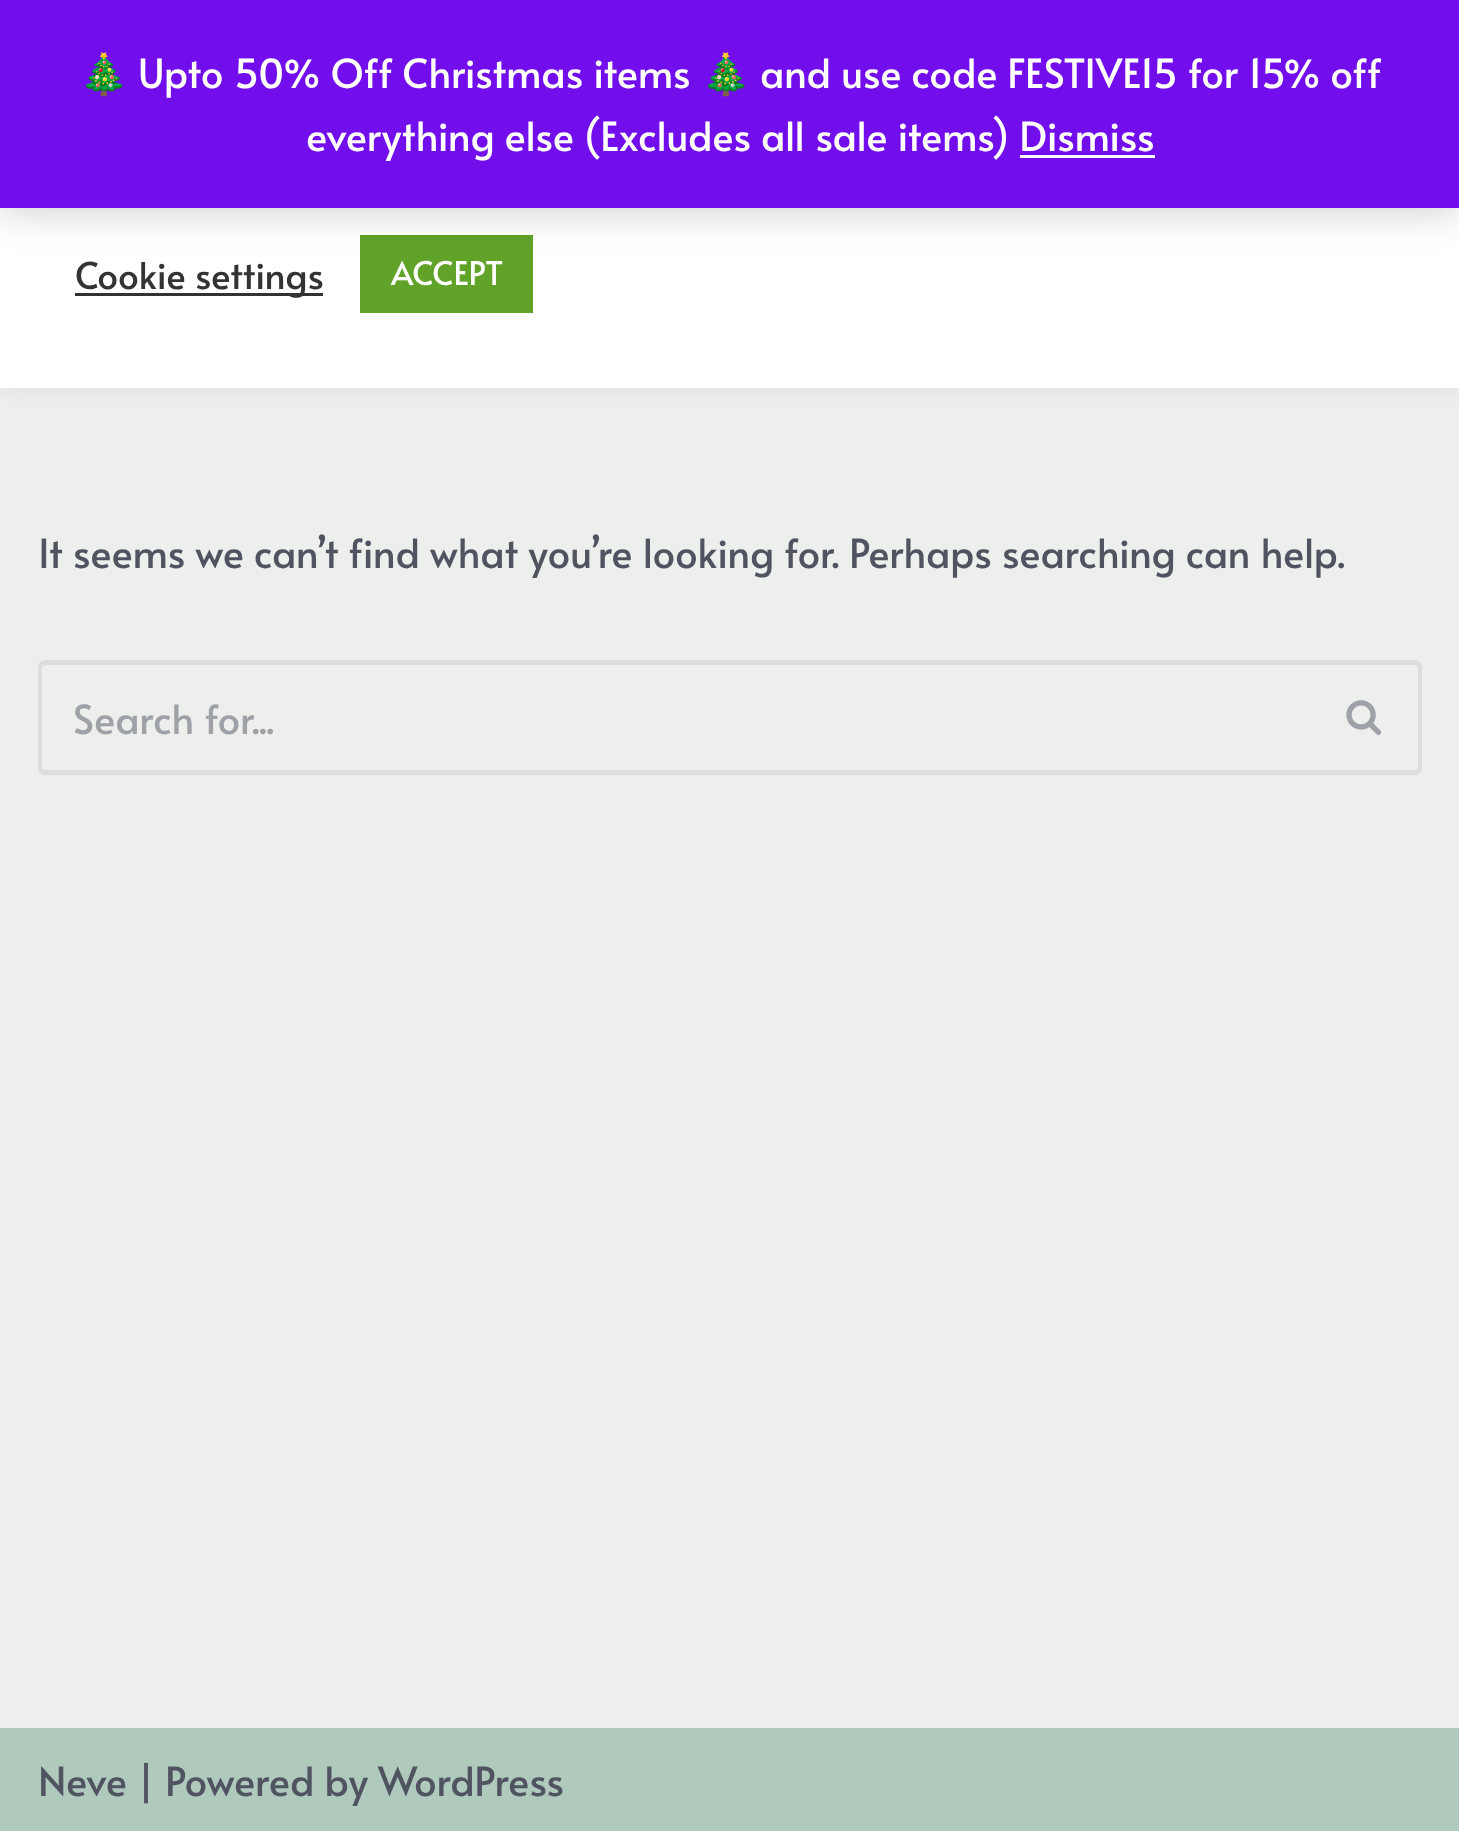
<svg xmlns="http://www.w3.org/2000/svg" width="1459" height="1831">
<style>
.a{font:40px Noto Color Emoji;fill:#fff}
.b{font:40px Alata;fill:#fff}
.c{font:36.75px Alata;fill:#333}
.d{font:32.5px Alata;fill:#fff}
.e{font:40px Alata;fill:#505461}
.f{font:40px Alata;fill:#9ea2a7}
</style>
<rect width="100%" height="100%" fill="#ecefec"/>
<path fill="#acabab4d" filter="blur(12.5px)" d="M0 -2h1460v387H0z"/>
<path fill="#fff" d="M0 208h1459v180H0z"/>
<path fill="#61a229" d="M360 235h173v78H360z"/>
<path fill="#00000033" filter="blur(20px)" d="M0 3h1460v207H0z"/>
<path fill="#720eec" d="M0 0h1459v208H0z"/>
<path fill="#333" d="M75 293h248v3H75z"/>
<path fill="#ddd" fill-rule="evenodd" d="M45 660h1265v115h-1265c-4 0-7-3-7-7v-100c0-5 3-8 7-8zm0 5h1265v105h-1265c-1 0-3-1-3-2v-100c0-2 2-3 3-3z"/>
<path fill="#ddd" fill-rule="evenodd" d="M1310 660h105c4 0 7 3 7 8v100c0 4-3 7-7 7h-105zm0 5h105c1 0 3 1 3 3v100c0 1-2 2-3 2h-105z"/>
<image href="1.png" x="1346" y="700" width="36" height="35"/>
<path fill="#afc9bd" d="M0 1728h1459v103H0z"/>
<text class="a" x="79" y="88">🎄</text>
<text class="b" x="138" y="88">Upto 50% Off Christmas items</text>
<text class="a" x="701" y="88">🎄</text>
<text class="b" x="760" y="88">and use code FESTIVE15 for 15% off</text>
<text class="b" x="306" y="151">everything else (Excludes all sale items) Dismiss</text>
<path fill="#fcfbfe" d="M1020 155h135v3H1020z"/>
<text class="c" x="75" y="289">Cookie settings</text>
<text class="d" x="391" y="285">ACCEPT</text>
<text class="e" x="38" y="568">It seems we can’t find what you’re looking for. Perhaps searching can help.</text>
<text class="f" x="73" y="734">Search for...</text>
<text class="e" x="38" y="1796">Neve | Powered by WordPress</text>
</svg>
